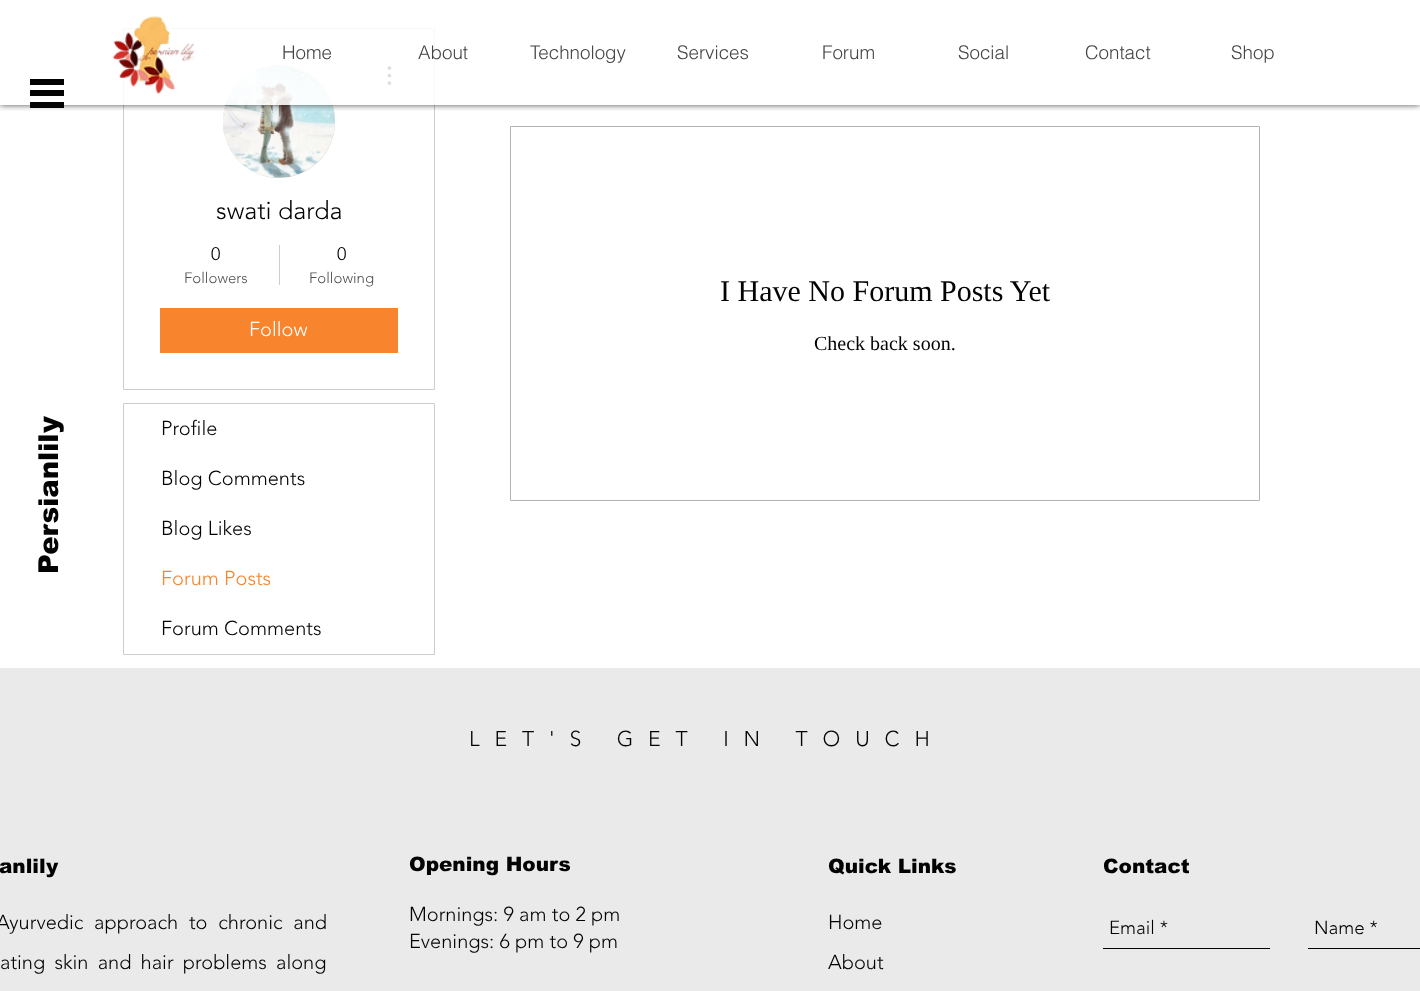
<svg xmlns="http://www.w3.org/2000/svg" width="1420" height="991">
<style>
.a{font:300 18.75px helvetica;fill:#444}
.b{font:300 25px 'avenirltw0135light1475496';fill:#030303}
.c{font:300 18px 'avenirltw0135light1475496';fill:#030303}
.d{font:300 15px 'avenirltw0135light1475496';fill:#4f4f4f}
.e{font:300 20px 'avenirltw0135light1475496';fill:#fff}
.f{font:300 20px 'avenirltw0135light1475496';fill:#030303}
.g{font:300 20px 'avenirltw0135light1475496';fill:#f8852d}
.h{font:30px Liberation Serif;fill:#030303}
.i{font:20px Liberation Serif;fill:#030303}
.j{font:900 27.5px arial;fill:#030303}
.k{font:300 21.25px 'avenirltw0135light1475496';letter-spacing:14.9px;fill:#030303}
.l{font:900 20px arial;fill:#030303}
.m{font:300 18.75px 'avenirltw0135light1475496';fill:#030303}
</style>
<defs>
<clipPath id="clip1"><path d="M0 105h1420v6H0z"/></clipPath>
</defs>
<rect width="100%" height="100%" fill="#fff"/>
<path fill="none" stroke="#cdcdcd" d="M123.5 28.5h311v361H123.5z"/>
<rect fill="#d8d8d8" x="223" y="65" width="112" height="113" rx="56"/>
<image href="2.png" x="223" y="65" width="112" height="113"/>
<image href="3.png" x="387" y="66" width="5" height="19"/>
<g clip-path="url(#clip1)">
<path fill="#000000b3" filter="blur(3px)" d="M0 0h1420v105H0z"/>
</g>
<path fill="#ffffffc2" d="M123 28h312v77H123z"/>
<path fill="#ffffff75" d="M123 28h312v77H123z"/>
<image href="1.png" x="112" y="16" width="83" height="79"/>
<path fill="#030303" d="M30 79h34v6H30z"/>
<path fill="#030303" d="M30 90h34v6H30z"/>
<path fill="#030303" d="M30 102h34v6H30z"/>
<path fill="#cdcdcd" d="M279 245h1v40H279z"/>
<path fill="#f8852d" d="M160 308h238v45H160z"/>
<path fill="none" stroke="#cdcdcd" d="M123.5 403.5h311v251H123.5z"/>
<path fill="none" stroke="#b3b3b3" d="M510.5 126.5h749v374H510.5z"/>
<path fill="#eaeaea" d="M0 668h1420v323H0z"/>
<path fill="#030303" d="M1103 948h167v1H1103z"/>
<path fill="#030303" d="M1308 948h112v1H1308z"/>
<text class="a" x="282" y="59">Home</text>
<text class="a" x="418" y="59">About</text>
<text class="a" x="530" y="59">Technology</text>
<text class="a" x="677" y="59">Services</text>
<text class="a" x="822" y="59">Forum</text>
<text class="a" x="958" y="59">Social</text>
<text class="a" x="1085" y="59">Contact</text>
<text class="a" x="1231" y="59">Shop</text>
<text class="b" x="216" y="219">swati darda</text>
<text class="c" x="211" y="260">0</text>
<text class="d" x="184" y="283">Followers</text>
<text class="c" x="337" y="260">0</text>
<text class="d" x="309" y="283">Following</text>
<text class="e" x="249" y="336">Follow</text>
<text class="f" x="161" y="435">Profile</text>
<text class="f" x="161" y="485">Blog Comments</text>
<text class="f" x="161" y="535">Blog Likes</text>
<text class="g" x="161" y="585">Forum Posts</text>
<text class="f" x="161" y="635">Forum Comments</text>
<text class="h" x="720" y="301">I Have No Forum Posts Yet</text>
<text class="i" x="814" y="350">Check back soon.</text>
<text class="j" x="58" y="574" transform="rotate(-90 58 574)">Persianlily</text>
<text class="k" x="469" y="746">LET'S GET IN TOUCH</text>
<text class="l" x="-1" y="873">anlily</text>
<text class="l" x="409" y="871">Opening Hours</text>
<text class="l" x="828" y="873">Quick Links</text>
<text class="l" x="1103" y="873">Contact</text>
<text class="f" x="-4" y="929" word-spacing="5.5">Ayurvedic approach to chronic and</text>
<text class="f" x="0" y="969" word-spacing="4">ating skin and hair problems along</text>
<text class="f" x="409" y="921">Mornings: 9 am to 2 pm</text>
<text class="f" x="409" y="948">Evenings: 6 pm to 9 pm</text>
<text class="f" x="828" y="929">Home</text>
<text class="f" x="828" y="969">About</text>
<text class="m" x="1109" y="934">Email *</text>
<text class="m" x="1314" y="934">Name *</text>
</svg>
